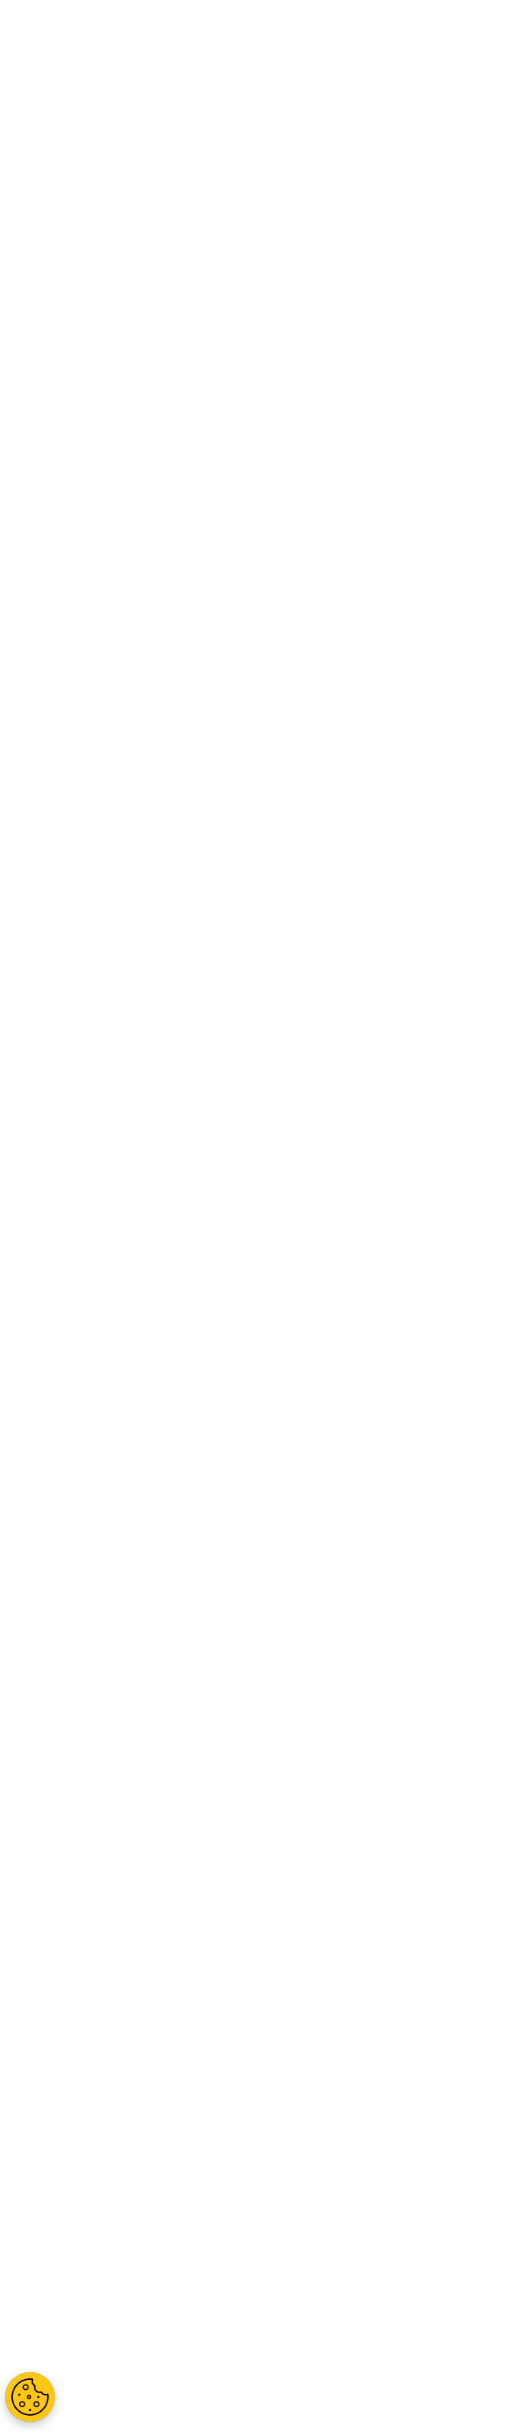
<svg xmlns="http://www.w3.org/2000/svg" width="508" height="2432">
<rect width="100%" height="100%" fill="#fff"/>
<rect fill="#00000033" filter="blur(4px)" x="5" y="2376" width="50" height="50" rx="25"/>
<circle fill="#6aaae4" cx="30" cy="2397" r="25"/>
<image href="1.png" x="5" y="2372" width="50" height="50"/>
</svg>
